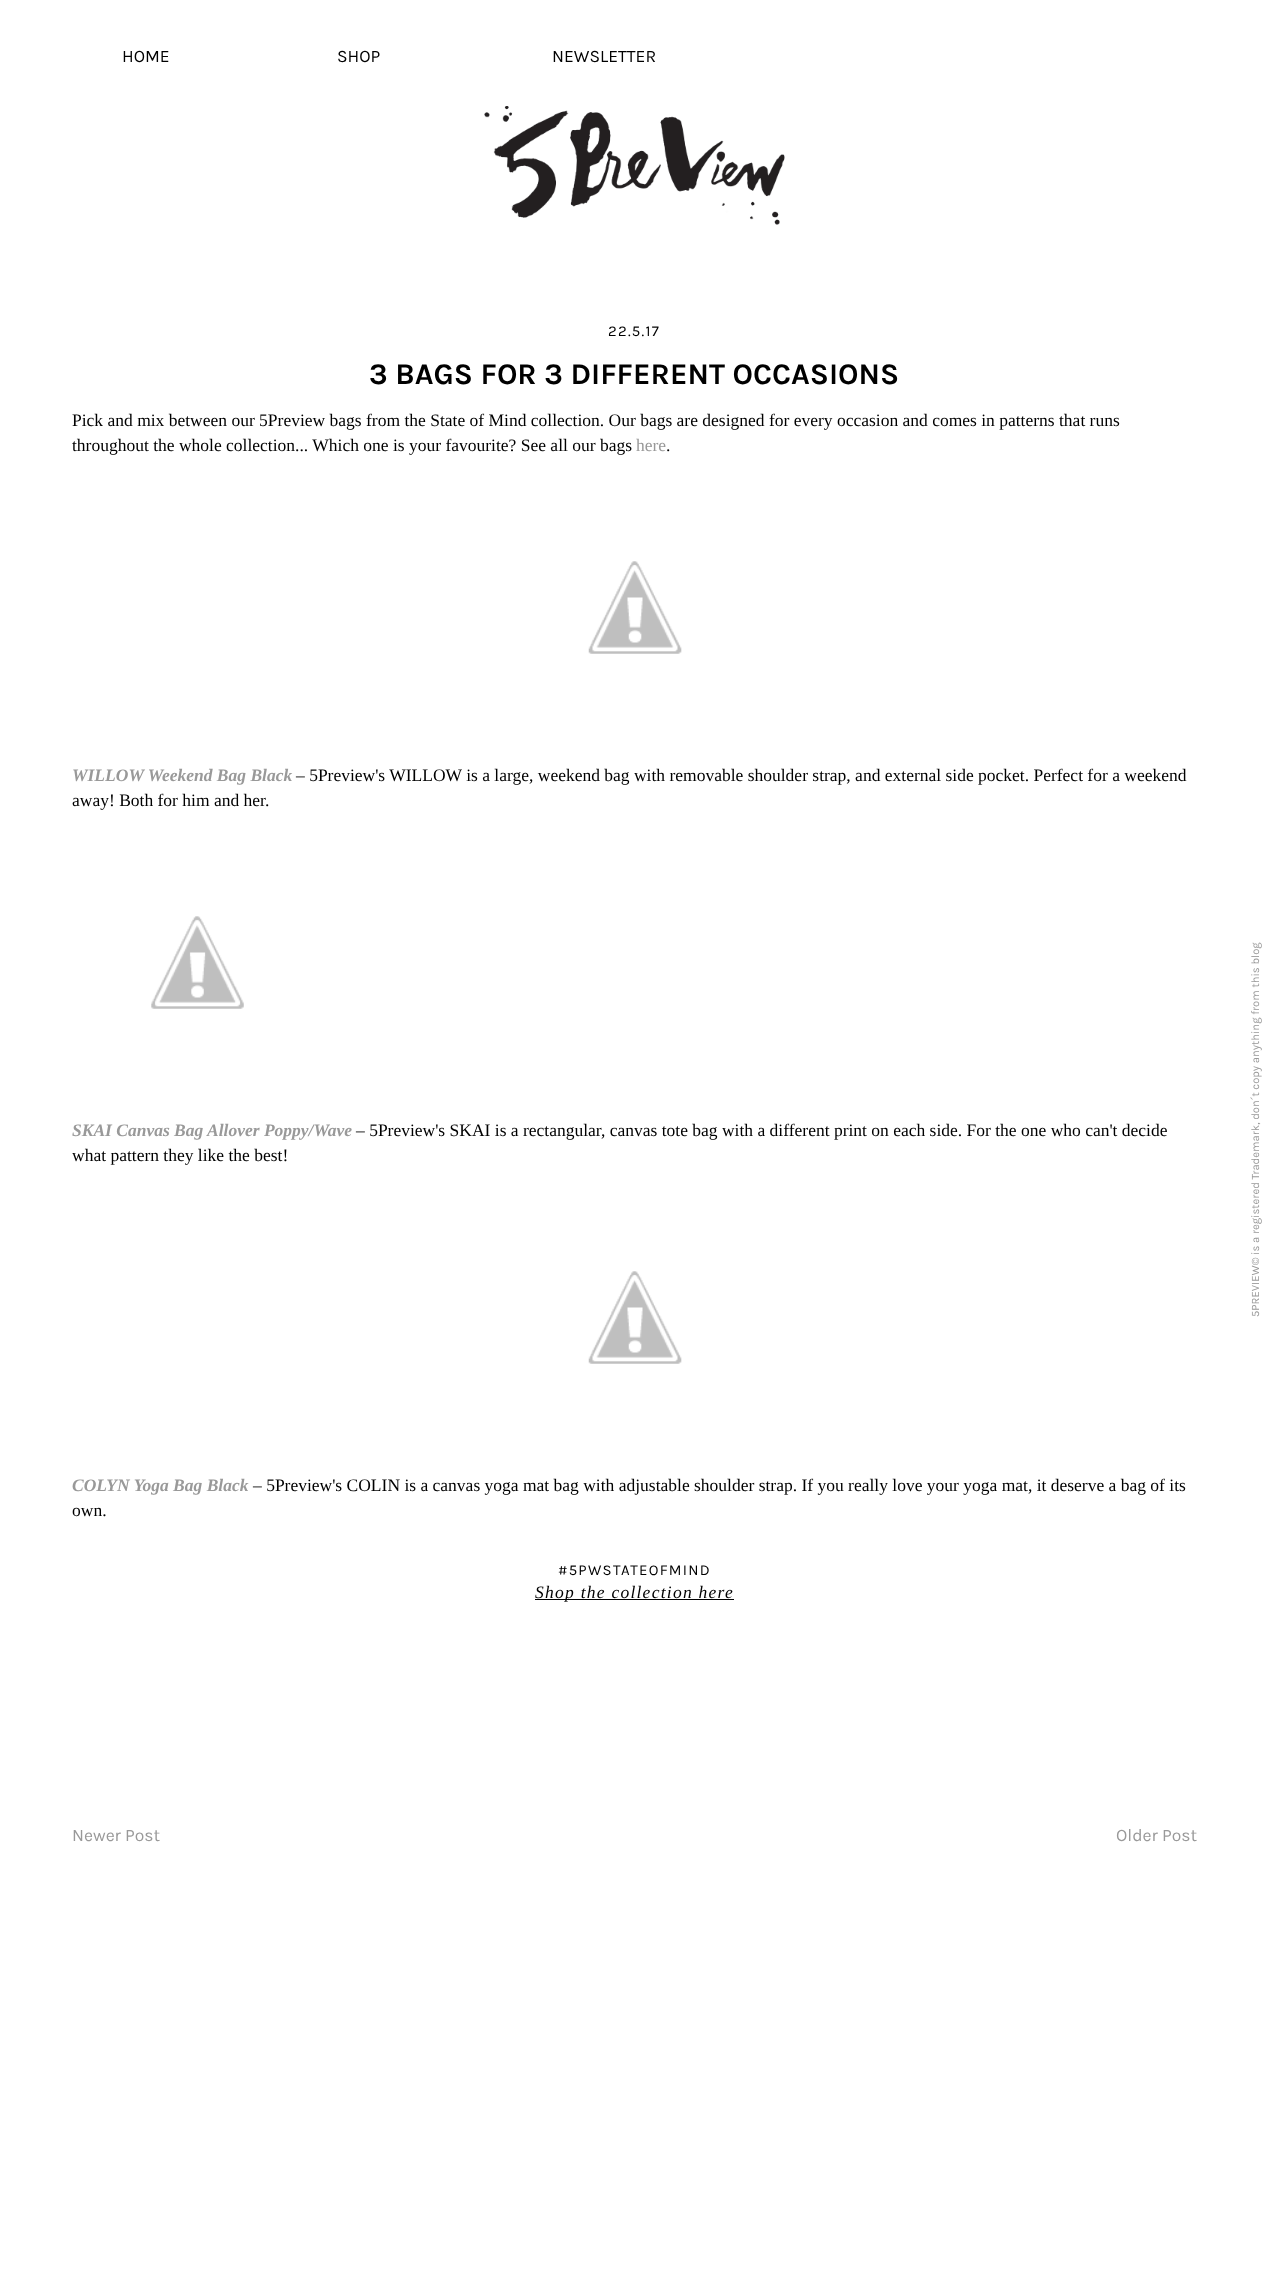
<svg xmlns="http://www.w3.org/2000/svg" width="1268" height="2274">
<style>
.a{font:17.5px Karla;fill:#000}
.b{font:15px Karla;letter-spacing:1.25px;fill:#000}
.c{font:bold 30px Karla;fill:#000}
.d{font:17.5px Liberation Serif;fill:#000}
.e{font:17.5px Liberation Serif;fill:#999}
.f{font:italic bold 17.5px Liberation Serif;fill:#999}
.g{font:italic 17.5px Liberation Serif;letter-spacing:1.25px;fill:#000}
.h{font:17.5px Karla;fill:#999}
.i{font:11.25px Karla;fill:#999}
</style>
<rect width="100%" height="100%" fill="#fff"/>
<image href="1.png" x="484" y="106" width="301" height="119"/>
<image href="2.png" x="588" y="561" width="94" height="93"/>
<image href="3.png" x="151" y="916" width="93" height="93"/>
<image href="2.png" x="588" y="1271" width="94" height="93"/>
<path fill="#000" d="M535 1599h199v1H535z"/>
<text class="a" x="122" y="62">HOME</text>
<text class="a" x="337" y="62">SHOP</text>
<text class="a" x="552" y="62">NEWSLETTER</text>
<text class="b" x="608" y="336">22.5.17</text>
<text class="c" x="369" y="384">3 BAGS FOR 3 DIFFERENT OCCASIONS</text>
<text class="d" x="72" y="426">Pick and mix between our 5Preview bags from the State of Mind collection. Our bags are designed for every occasion and comes in patterns that runs</text>
<text class="d" x="72" y="451">throughout the whole collection... Which one is your favourite? See all our bags</text>
<text class="e" x="636" y="451">here</text>
<text class="d" x="666" y="451">.</text>
<text class="f" x="72" y="781">WILLOW Weekend Bag Black</text>
<text class="d" x="296" y="781">– 5Preview's WILLOW is a large, weekend bag with removable shoulder strap, and external side pocket. Perfect for a weekend</text>
<text class="d" x="72" y="806">away! Both for him and her.</text>
<text class="f" x="72" y="1136">SKAI Canvas Bag Allover Poppy/Wave</text>
<text class="d" x="356" y="1136">– 5Preview's SKAI is a rectangular, canvas tote bag with a different print on each side. For the one who can't decide</text>
<text class="d" x="72" y="1161">what pattern they like the best!</text>
<text class="f" x="72" y="1491">COLYN Yoga Bag Black</text>
<text class="d" x="253" y="1491">– 5Preview's COLIN is a canvas yoga mat bag with adjustable shoulder strap. If you really love your yoga mat, it deserve a bag of its</text>
<text class="d" x="72" y="1516">own.</text>
<text class="b" x="558" y="1575">#5PWSTATEOFMIND</text>
<text class="g" x="535" y="1598">Shop the collection here</text>
<text class="h" x="72" y="1841">Newer Post</text>
<text class="h" x="1116" y="1841">Older Post</text>
<text class="i" x="1259" y="1317" transform="rotate(-90 1259 1317)">5PREVIEW© is a registered Trademark, don´t copy anything from this blog</text>
</svg>
